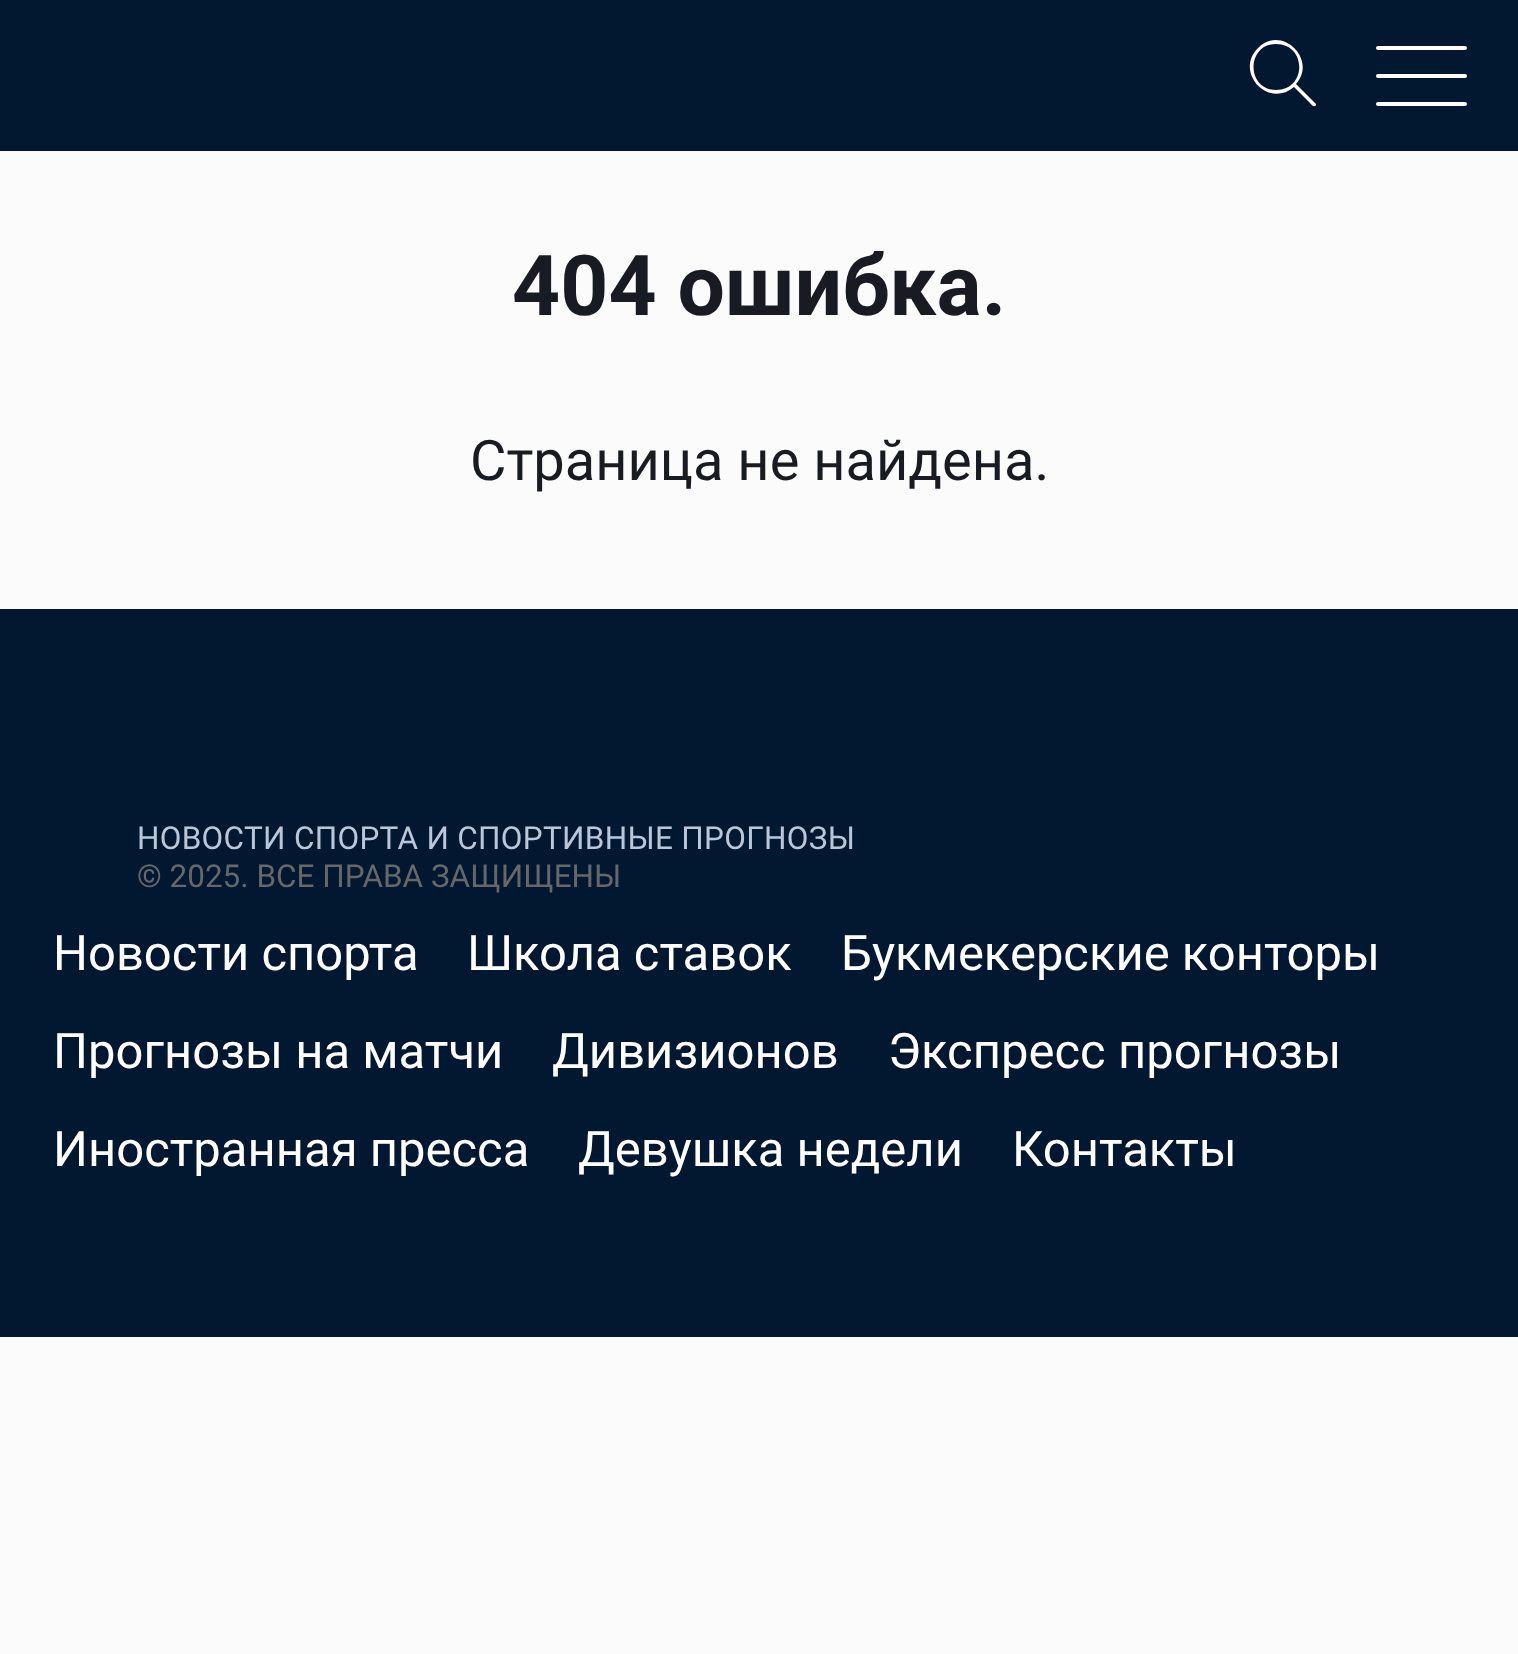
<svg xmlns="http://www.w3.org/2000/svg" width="1518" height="1654">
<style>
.a{font:bold 84px Roboto;fill:#181b22}
.b{font:56px Roboto;fill:#181b22}
.c{font:31.5px Roboto;letter-spacing:0.3px;fill:#b9c7d8}
.d{font:31.5px Roboto;fill:#656769}
.e{font:49px Roboto;fill:#fff}
</style>
<rect width="100%" height="100%" fill="#fbfbfb"/>
<path fill="#021831" d="M0 0h1518v151H0z"/>
<path fill="#fff" d="M1296 84l20 20c0 1 0 2-1 2c-2 1-5-3-5-3l-16-16c-26 22-60-15-36-39c23-24 60 11 38 36zm-20 6c31 0 31-46 0-46c-30 0-30 46 0 46z"/>
<rect fill="#fff" x="1376" y="74" width="91" height="4" rx="2"/>
<rect fill="#fff" x="1376" y="46" width="91" height="4" rx="2"/>
<rect fill="#fff" x="1376" y="102" width="91" height="4" rx="2"/>
<path fill="#021831" d="M0 609h1518v728H0z"/>
<text class="a" x="512" y="315">404 ошибка.</text>
<text class="b" x="470" y="480">Страница не найдена.</text>
<text class="c" x="137" y="849">НОВОСТИ СПОРТА И СПОРТИВНЫЕ ПРОГНОЗЫ</text>
<text class="d" x="137" y="887">© 2025. ВСЕ ПРАВА ЗАЩИЩЕНЫ</text>
<text class="e" x="53" y="970">Новости спорта</text>
<text class="e" x="467" y="970">Школа ставок</text>
<text class="e" x="841" y="970">Букмекерские конторы</text>
<text class="e" x="53" y="1068">Прогнозы на матчи</text>
<text class="e" x="552" y="1068">Дивизионов</text>
<text class="e" x="888" y="1068">Экспресс прогнозы</text>
<text class="e" x="53" y="1166">Иностранная пресса</text>
<text class="e" x="578" y="1166">Девушка недели</text>
<text class="e" x="1012" y="1166">Контакты</text>
</svg>
